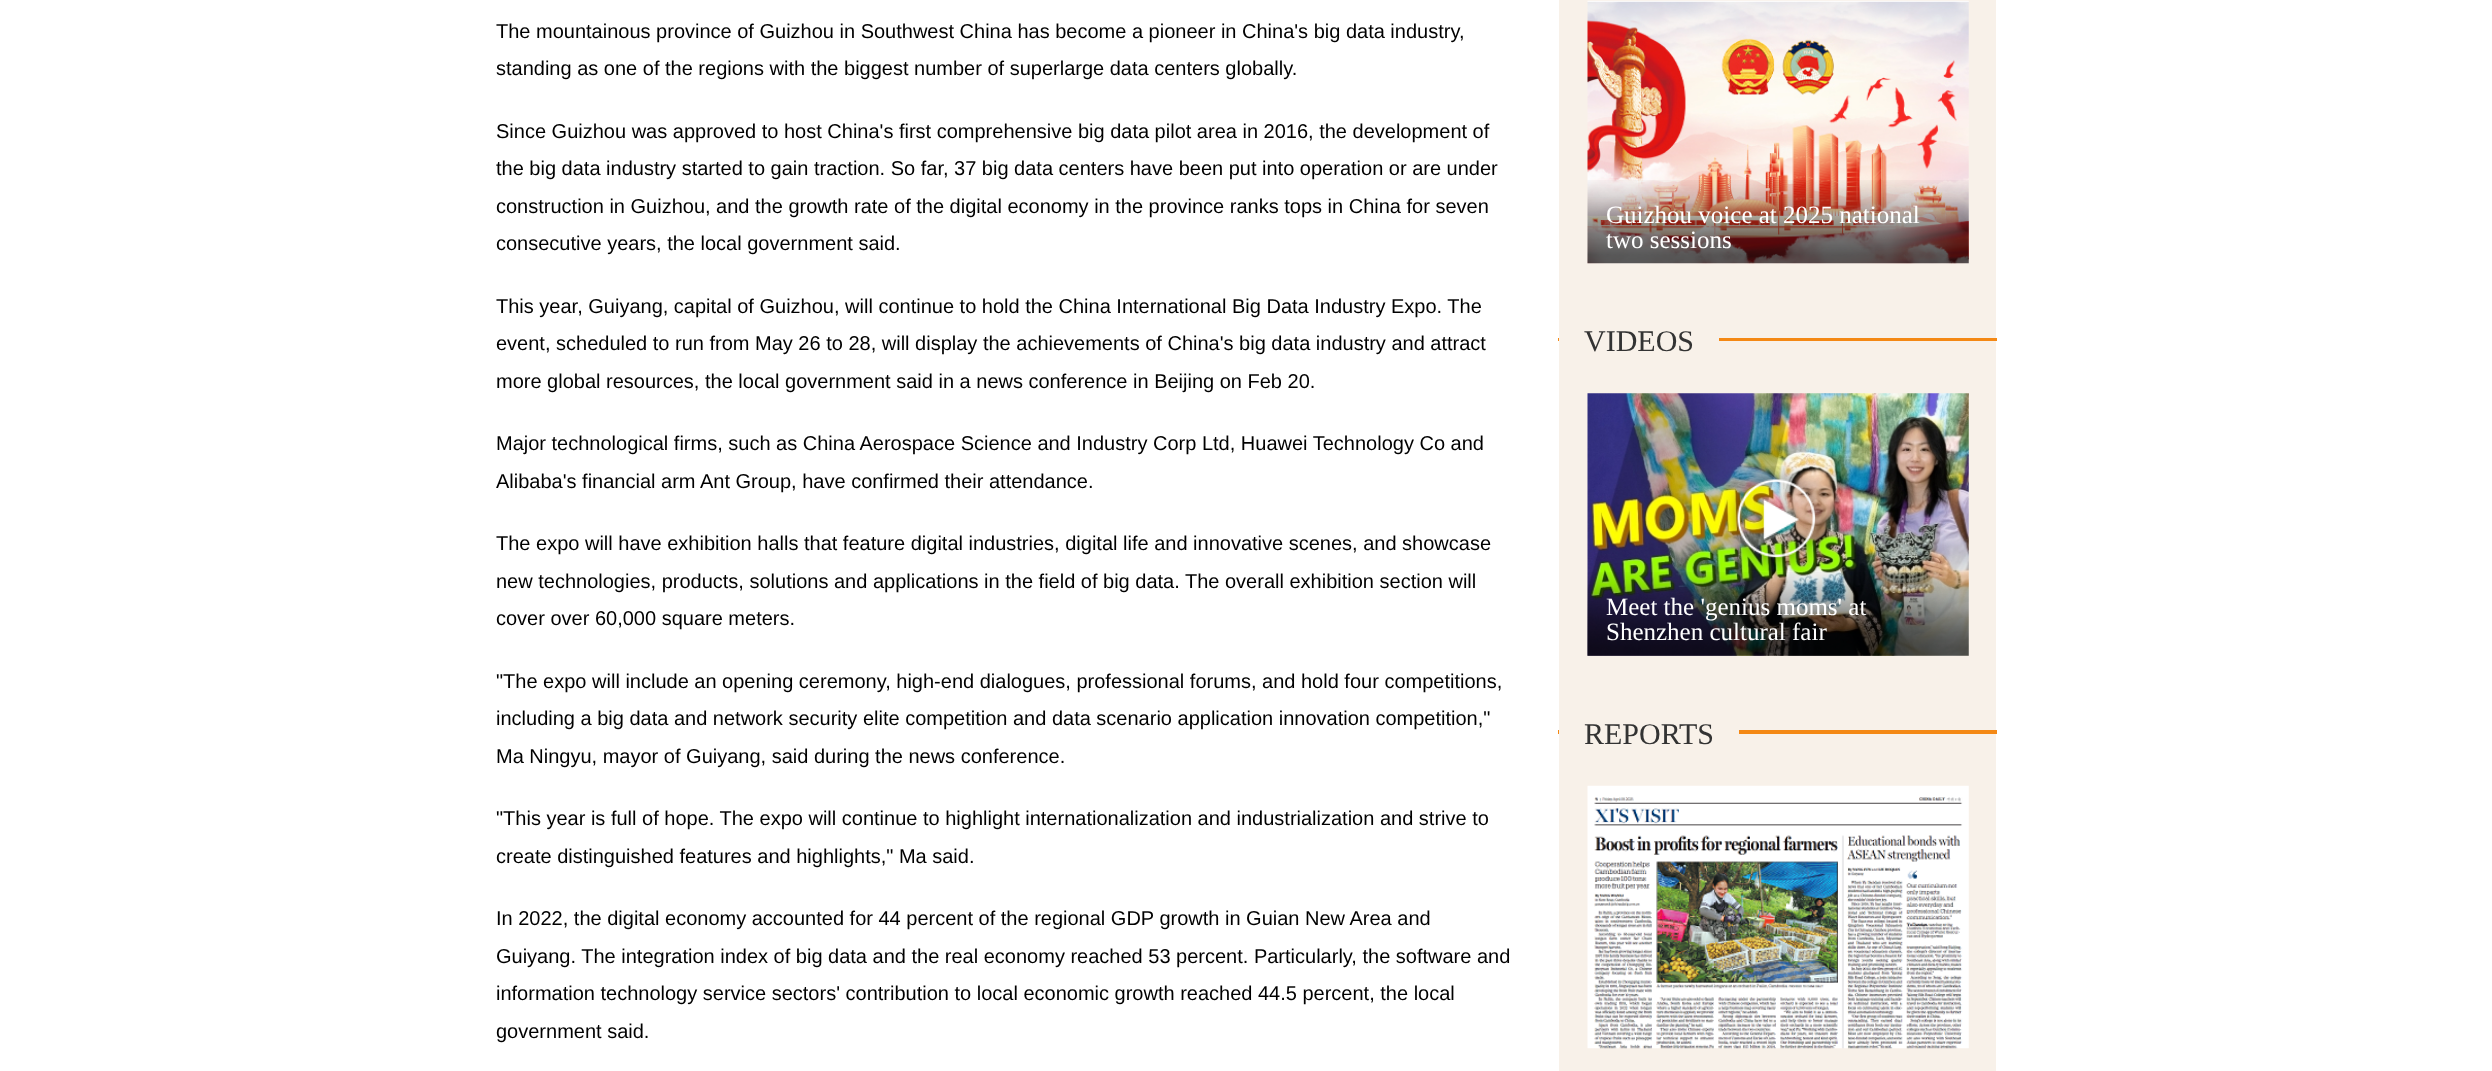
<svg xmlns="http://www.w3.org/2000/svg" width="2492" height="1071">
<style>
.a{font:20px Liberation Sans;fill:#000}
.b{font:25px Liberation Serif;fill:#fff}
.c{font:30px Liberation Serif;fill:#333}
</style>
<rect width="100%" height="100%" fill="#fff"/>
<path fill="#f8f1e9" d="M1559 0h437v1071H1559z"/>
<image href="1.png" x="1587" y="0" width="382" height="264"/>
<image href="2.png" x="1587" y="180" width="382" height="84"/>
<path fill="#f48814" d="M1558 338h439v3H1558z"/>
<path fill="#f8f1e9" d="M1559 338h160v3H1559z"/>
<image href="3.png" x="1587" y="393" width="382" height="263"/>
<image href="4.png" x="1724" y="466" width="105" height="105"/>
<image href="5.png" x="1587" y="572" width="382" height="84"/>
<path fill="#f48814" d="M1558 730h439v4H1558z"/>
<path fill="#f8f1e9" d="M1559 730h180v4H1559z"/>
<image href="6.png" x="1587" y="785" width="382" height="264"/>
<text class="a" x="496" y="38">The mountainous province of Guizhou in Southwest China has become a pioneer in China's big data industry,</text>
<text class="a" x="496" y="75">standing as one of the regions with the biggest number of superlarge data centers globally.</text>
<text class="a" x="496" y="138">Since Guizhou was approved to host China's first comprehensive big data pilot area in 2016, the development of</text>
<text class="a" x="496" y="175">the big data industry started to gain traction. So far, 37 big data centers have been put into operation or are under</text>
<text class="a" x="496" y="213">construction in Guizhou, and the growth rate of the digital economy in the province ranks tops in China for seven</text>
<text class="a" x="496" y="250">consecutive years, the local government said.</text>
<text class="a" x="496" y="313">This year, Guiyang, capital of Guizhou, will continue to hold the China International Big Data Industry Expo. The</text>
<text class="a" x="496" y="350">event, scheduled to run from May 26 to 28, will display the achievements of China's big data industry and attract</text>
<text class="a" x="496" y="388">more global resources, the local government said in a news conference in Beijing on Feb 20.</text>
<text class="a" x="496" y="450">Major technological firms, such as China Aerospace Science and Industry Corp Ltd, Huawei Technology Co and</text>
<text class="a" x="496" y="488">Alibaba's financial arm Ant Group, have confirmed their attendance.</text>
<text class="a" x="496" y="550">The expo will have exhibition halls that feature digital industries, digital life and innovative scenes, and showcase</text>
<text class="a" x="496" y="588">new technologies, products, solutions and applications in the field of big data. The overall exhibition section will</text>
<text class="a" x="496" y="625">cover over 60,000 square meters.</text>
<text class="a" x="496" y="688">"The expo will include an opening ceremony, high-end dialogues, professional forums, and hold four competitions,</text>
<text class="a" x="496" y="725">including a big data and network security elite competition and data scenario application innovation competition,"</text>
<text class="a" x="496" y="763">Ma Ningyu, mayor of Guiyang, said during the news conference.</text>
<text class="a" x="496" y="825">"This year is full of hope. The expo will continue to highlight internationalization and industrialization and strive to</text>
<text class="a" x="496" y="863">create distinguished features and highlights," Ma said.</text>
<text class="a" x="496" y="925">In 2022, the digital economy accounted for 44 percent of the regional GDP growth in Guian New Area and</text>
<text class="a" x="496" y="963">Guiyang. The integration index of big data and the real economy reached 53 percent. Particularly, the software and</text>
<text class="a" x="496" y="1000">information technology service sectors' contribution to local economic growth reached 44.5 percent, the local</text>
<text class="a" x="496" y="1038">government said.</text>
<text class="b" x="1606" y="223">Guizhou voice at 2025 national</text>
<text class="b" x="1606" y="248">two sessions</text>
<text class="c" x="1584" y="351">VIDEOS</text>
<text class="b" x="1606" y="615">Meet the 'genius moms' at</text>
<text class="b" x="1606" y="640">Shenzhen cultural fair</text>
<text class="c" x="1584" y="744">REPORTS</text>
</svg>
